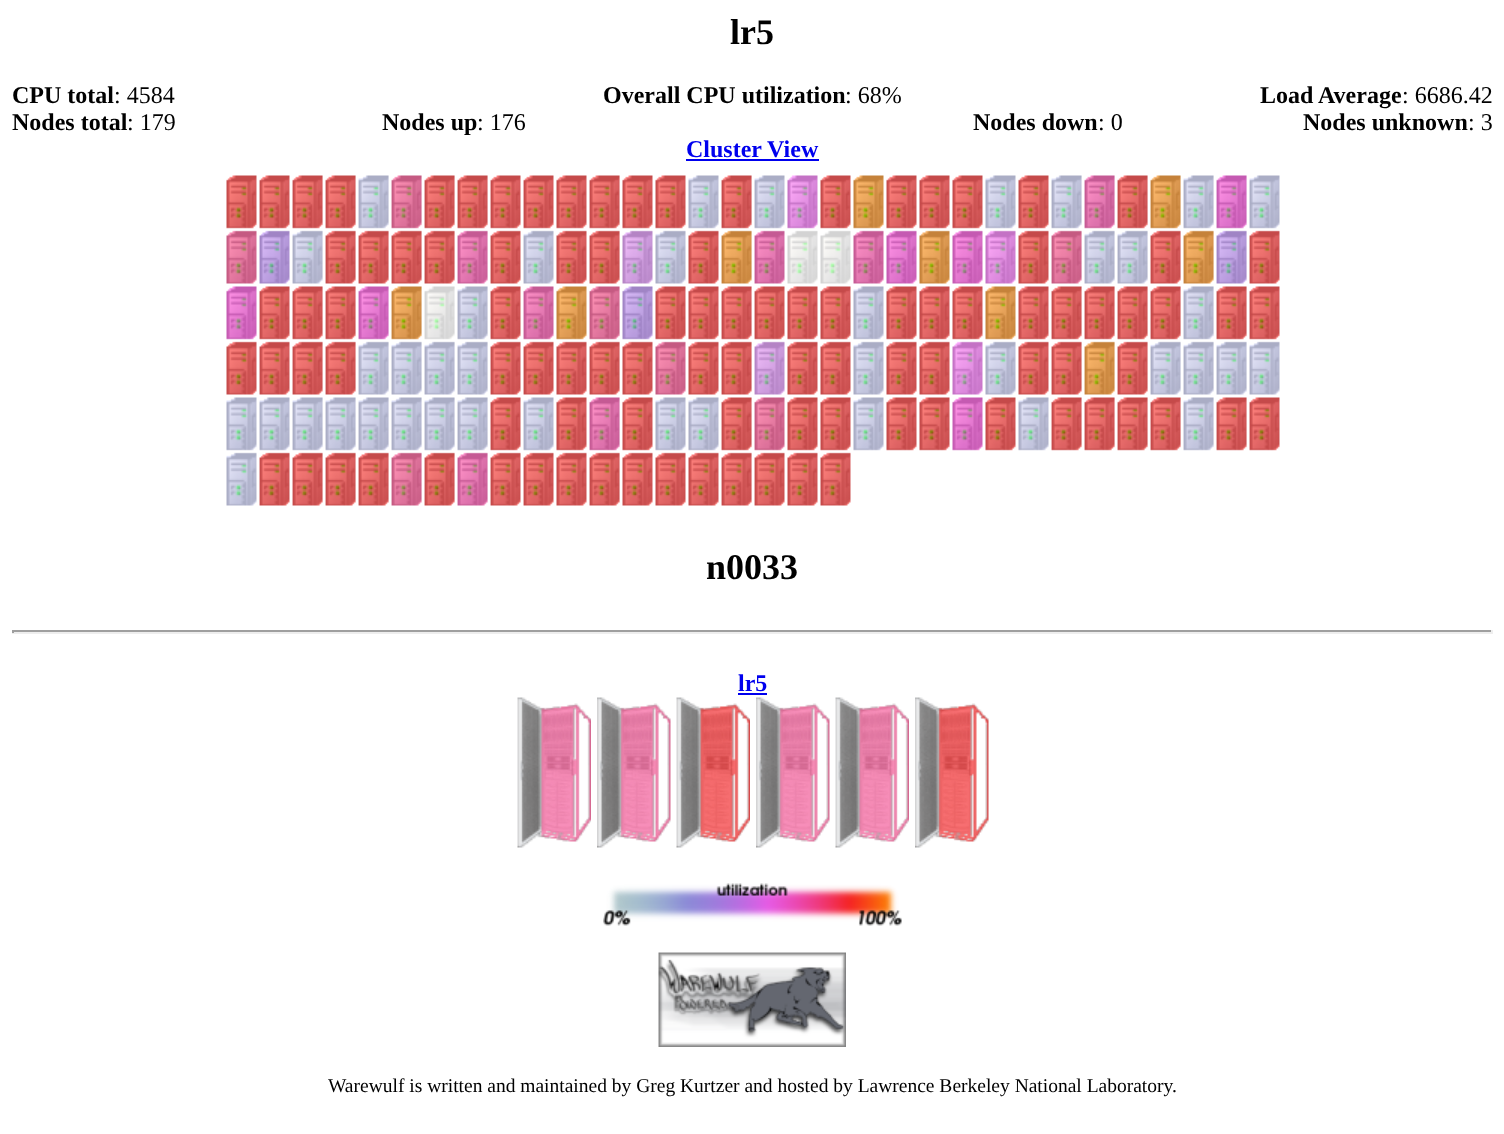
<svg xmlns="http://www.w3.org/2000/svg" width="1504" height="1134">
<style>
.a{font:bold 36px Liberation Serif;fill:#000}
.b{font:bold 24px Liberation Serif;fill:#000}
.c{font:24px Liberation Serif;fill:#000}
.d{font:bold 24px Liberation Serif;fill:#00e}
.e{font:19.5px Liberation Serif;fill:#000}
</style>
<rect width="100%" height="100%" fill="#fff"/>
<path fill="#00e" d="M686 159h133v2H686z"/>
<image href="1.png" x="226" y="175" width="31" height="54"/>
<image href="2.png" x="259" y="175" width="31" height="54"/>
<image href="3.png" x="292" y="175" width="31" height="54"/>
<image href="3.png" x="325" y="175" width="31" height="54"/>
<image href="4.png" x="358" y="175" width="31" height="54"/>
<image href="5.png" x="391" y="175" width="31" height="54"/>
<image href="3.png" x="424" y="175" width="31" height="54"/>
<image href="3.png" x="457" y="175" width="31" height="54"/>
<image href="6.png" x="490" y="175" width="31" height="54"/>
<image href="7.png" x="523" y="175" width="31" height="54"/>
<image href="1.png" x="556" y="175" width="31" height="54"/>
<image href="3.png" x="589" y="175" width="31" height="54"/>
<image href="1.png" x="622" y="175" width="31" height="54"/>
<image href="1.png" x="655" y="175" width="31" height="54"/>
<image href="8.png" x="688" y="175" width="31" height="54"/>
<image href="3.png" x="721" y="175" width="31" height="54"/>
<image href="9.png" x="754" y="175" width="31" height="54"/>
<image href="10.png" x="787" y="175" width="31" height="54"/>
<image href="1.png" x="820" y="175" width="31" height="54"/>
<image href="11.png" x="853" y="175" width="31" height="54"/>
<image href="1.png" x="886" y="175" width="31" height="54"/>
<image href="1.png" x="919" y="175" width="31" height="54"/>
<image href="1.png" x="952" y="175" width="31" height="54"/>
<image href="8.png" x="985" y="175" width="31" height="54"/>
<image href="1.png" x="1018" y="175" width="31" height="54"/>
<image href="4.png" x="1051" y="175" width="31" height="54"/>
<image href="12.png" x="1084" y="175" width="31" height="54"/>
<image href="3.png" x="1117" y="175" width="31" height="54"/>
<image href="13.png" x="1150" y="175" width="31" height="54"/>
<image href="4.png" x="1183" y="175" width="31" height="54"/>
<image href="14.png" x="1216" y="175" width="31" height="54"/>
<image href="15.png" x="1249" y="175" width="31" height="54"/>
<image href="16.png" x="226" y="230" width="31" height="54"/>
<image href="17.png" x="259" y="230" width="31" height="54"/>
<image href="18.png" x="292" y="230" width="31" height="54"/>
<image href="19.png" x="325" y="230" width="31" height="54"/>
<image href="19.png" x="358" y="230" width="31" height="54"/>
<image href="19.png" x="391" y="230" width="31" height="54"/>
<image href="19.png" x="424" y="230" width="31" height="54"/>
<image href="20.png" x="457" y="230" width="31" height="54"/>
<image href="21.png" x="490" y="230" width="31" height="54"/>
<image href="22.png" x="523" y="230" width="31" height="54"/>
<image href="23.png" x="556" y="230" width="31" height="54"/>
<image href="19.png" x="589" y="230" width="31" height="54"/>
<image href="24.png" x="622" y="230" width="31" height="54"/>
<image href="25.png" x="655" y="230" width="31" height="54"/>
<image href="23.png" x="688" y="230" width="31" height="54"/>
<image href="26.png" x="721" y="230" width="31" height="54"/>
<image href="27.png" x="754" y="230" width="31" height="54"/>
<image href="28.png" x="787" y="230" width="31" height="54"/>
<image href="28.png" x="820" y="230" width="31" height="54"/>
<image href="29.png" x="853" y="230" width="31" height="54"/>
<image href="30.png" x="886" y="230" width="31" height="54"/>
<image href="31.png" x="919" y="230" width="31" height="54"/>
<image href="30.png" x="952" y="230" width="31" height="54"/>
<image href="32.png" x="985" y="230" width="31" height="54"/>
<image href="23.png" x="1018" y="230" width="31" height="54"/>
<image href="33.png" x="1051" y="230" width="31" height="54"/>
<image href="18.png" x="1084" y="230" width="31" height="54"/>
<image href="18.png" x="1117" y="230" width="31" height="54"/>
<image href="19.png" x="1150" y="230" width="31" height="54"/>
<image href="26.png" x="1183" y="230" width="31" height="54"/>
<image href="34.png" x="1216" y="230" width="31" height="54"/>
<image href="35.png" x="1249" y="230" width="31" height="54"/>
<image href="36.png" x="226" y="286" width="31" height="54"/>
<image href="2.png" x="259" y="286" width="31" height="54"/>
<image href="3.png" x="292" y="286" width="31" height="54"/>
<image href="3.png" x="325" y="286" width="31" height="54"/>
<image href="14.png" x="358" y="286" width="31" height="54"/>
<image href="13.png" x="391" y="286" width="31" height="54"/>
<image href="37.png" x="424" y="286" width="31" height="54"/>
<image href="4.png" x="457" y="286" width="31" height="54"/>
<image href="6.png" x="490" y="286" width="31" height="54"/>
<image href="38.png" x="523" y="286" width="31" height="54"/>
<image href="11.png" x="556" y="286" width="31" height="54"/>
<image href="5.png" x="589" y="286" width="31" height="54"/>
<image href="39.png" x="622" y="286" width="31" height="54"/>
<image href="1.png" x="655" y="286" width="31" height="54"/>
<image href="1.png" x="688" y="286" width="31" height="54"/>
<image href="3.png" x="721" y="286" width="31" height="54"/>
<image href="40.png" x="754" y="286" width="31" height="54"/>
<image href="1.png" x="787" y="286" width="31" height="54"/>
<image href="1.png" x="820" y="286" width="31" height="54"/>
<image href="8.png" x="853" y="286" width="31" height="54"/>
<image href="1.png" x="886" y="286" width="31" height="54"/>
<image href="1.png" x="919" y="286" width="31" height="54"/>
<image href="1.png" x="952" y="286" width="31" height="54"/>
<image href="11.png" x="985" y="286" width="31" height="54"/>
<image href="1.png" x="1018" y="286" width="31" height="54"/>
<image href="3.png" x="1051" y="286" width="31" height="54"/>
<image href="3.png" x="1084" y="286" width="31" height="54"/>
<image href="3.png" x="1117" y="286" width="31" height="54"/>
<image href="3.png" x="1150" y="286" width="31" height="54"/>
<image href="4.png" x="1183" y="286" width="31" height="54"/>
<image href="3.png" x="1216" y="286" width="31" height="54"/>
<image href="41.png" x="1249" y="286" width="31" height="54"/>
<image href="23.png" x="226" y="341" width="31" height="54"/>
<image href="42.png" x="259" y="341" width="31" height="54"/>
<image href="19.png" x="292" y="341" width="31" height="54"/>
<image href="19.png" x="325" y="341" width="31" height="54"/>
<image href="18.png" x="358" y="341" width="31" height="54"/>
<image href="18.png" x="391" y="341" width="31" height="54"/>
<image href="18.png" x="424" y="341" width="31" height="54"/>
<image href="18.png" x="457" y="341" width="31" height="54"/>
<image href="21.png" x="490" y="341" width="31" height="54"/>
<image href="43.png" x="523" y="341" width="31" height="54"/>
<image href="23.png" x="556" y="341" width="31" height="54"/>
<image href="19.png" x="589" y="341" width="31" height="54"/>
<image href="23.png" x="622" y="341" width="31" height="54"/>
<image href="16.png" x="655" y="341" width="31" height="54"/>
<image href="23.png" x="688" y="341" width="31" height="54"/>
<image href="19.png" x="721" y="341" width="31" height="54"/>
<image href="44.png" x="754" y="341" width="31" height="54"/>
<image href="23.png" x="787" y="341" width="31" height="54"/>
<image href="23.png" x="820" y="341" width="31" height="54"/>
<image href="25.png" x="853" y="341" width="31" height="54"/>
<image href="23.png" x="886" y="341" width="31" height="54"/>
<image href="23.png" x="919" y="341" width="31" height="54"/>
<image href="32.png" x="952" y="341" width="31" height="54"/>
<image href="25.png" x="985" y="341" width="31" height="54"/>
<image href="23.png" x="1018" y="341" width="31" height="54"/>
<image href="19.png" x="1051" y="341" width="31" height="54"/>
<image href="26.png" x="1084" y="341" width="31" height="54"/>
<image href="19.png" x="1117" y="341" width="31" height="54"/>
<image href="18.png" x="1150" y="341" width="31" height="54"/>
<image href="18.png" x="1183" y="341" width="31" height="54"/>
<image href="18.png" x="1216" y="341" width="31" height="54"/>
<image href="45.png" x="1249" y="341" width="31" height="54"/>
<image href="8.png" x="226" y="397" width="31" height="54"/>
<image href="46.png" x="259" y="397" width="31" height="54"/>
<image href="4.png" x="292" y="397" width="31" height="54"/>
<image href="4.png" x="325" y="397" width="31" height="54"/>
<image href="4.png" x="358" y="397" width="31" height="54"/>
<image href="4.png" x="391" y="397" width="31" height="54"/>
<image href="4.png" x="424" y="397" width="31" height="54"/>
<image href="4.png" x="457" y="397" width="31" height="54"/>
<image href="6.png" x="490" y="397" width="31" height="54"/>
<image href="47.png" x="523" y="397" width="31" height="54"/>
<image href="1.png" x="556" y="397" width="31" height="54"/>
<image href="12.png" x="589" y="397" width="31" height="54"/>
<image href="1.png" x="622" y="397" width="31" height="54"/>
<image href="8.png" x="655" y="397" width="31" height="54"/>
<image href="8.png" x="688" y="397" width="31" height="54"/>
<image href="3.png" x="721" y="397" width="31" height="54"/>
<image href="48.png" x="754" y="397" width="31" height="54"/>
<image href="1.png" x="787" y="397" width="31" height="54"/>
<image href="1.png" x="820" y="397" width="31" height="54"/>
<image href="8.png" x="853" y="397" width="31" height="54"/>
<image href="1.png" x="886" y="397" width="31" height="54"/>
<image href="1.png" x="919" y="397" width="31" height="54"/>
<image href="36.png" x="952" y="397" width="31" height="54"/>
<image href="1.png" x="985" y="397" width="31" height="54"/>
<image href="8.png" x="1018" y="397" width="31" height="54"/>
<image href="3.png" x="1051" y="397" width="31" height="54"/>
<image href="3.png" x="1084" y="397" width="31" height="54"/>
<image href="3.png" x="1117" y="397" width="31" height="54"/>
<image href="3.png" x="1150" y="397" width="31" height="54"/>
<image href="4.png" x="1183" y="397" width="31" height="54"/>
<image href="3.png" x="1216" y="397" width="31" height="54"/>
<image href="41.png" x="1249" y="397" width="31" height="54"/>
<image href="25.png" x="226" y="452" width="31" height="54"/>
<image href="42.png" x="259" y="452" width="31" height="54"/>
<image href="19.png" x="292" y="452" width="31" height="54"/>
<image href="19.png" x="325" y="452" width="31" height="54"/>
<image href="19.png" x="358" y="452" width="31" height="54"/>
<image href="33.png" x="391" y="452" width="31" height="54"/>
<image href="19.png" x="424" y="452" width="31" height="54"/>
<image href="20.png" x="457" y="452" width="31" height="54"/>
<image href="21.png" x="490" y="452" width="31" height="54"/>
<image href="43.png" x="523" y="452" width="31" height="54"/>
<image href="23.png" x="556" y="452" width="31" height="54"/>
<image href="19.png" x="589" y="452" width="31" height="54"/>
<image href="23.png" x="622" y="452" width="31" height="54"/>
<image href="23.png" x="655" y="452" width="31" height="54"/>
<image href="23.png" x="688" y="452" width="31" height="54"/>
<image href="19.png" x="721" y="452" width="31" height="54"/>
<image href="49.png" x="754" y="452" width="31" height="54"/>
<image href="23.png" x="787" y="452" width="31" height="54"/>
<image href="23.png" x="820" y="452" width="31" height="54"/>
<path fill="#9f9f9f" d="M12 630h1481v2H12z"/>
<path fill="#eee" d="M1491 630h2v3H1491z"/>
<path fill="#eee" d="M12 632h1481v2H12z"/>
<path fill="#9f9f9f" d="M12 630h2v3H12z"/>
<path fill="#00e" d="M738 693h29v2H738z"/>
<image href="50.png" x="517" y="697" width="74" height="151"/>
<image href="51.png" x="597" y="697" width="74" height="151"/>
<image href="52.png" x="676" y="697" width="74" height="151"/>
<image href="53.png" x="756" y="697" width="74" height="151"/>
<image href="54.png" x="835" y="697" width="74" height="151"/>
<image href="55.png" x="915" y="697" width="74" height="151"/>
<image href="56.png" x="603" y="883" width="299" height="43"/>
<image href="57.png" x="658" y="952" width="188" height="95"/>
<text class="a" x="730" y="44">lr5</text>
<text class="b" x="12" y="103">CPU total</text>
<text class="c" x="114" y="103">: 4584</text>
<text class="b" x="603" y="103">Overall CPU utilization</text>
<text class="c" x="845" y="103">: 68%</text>
<text class="b" x="1260" y="103">Load Average</text>
<text class="c" x="1402" y="103">: 6686.42</text>
<text class="b" x="12" y="130">Nodes total</text>
<text class="c" x="127" y="130">: 179</text>
<text class="b" x="382" y="130">Nodes up</text>
<text class="c" x="477" y="130">: 176</text>
<text class="b" x="973" y="130">Nodes down</text>
<text class="c" x="1098" y="130">: 0</text>
<text class="b" x="1303" y="130">Nodes unknown</text>
<text class="c" x="1468" y="130">: 3</text>
<text class="d" x="686" y="157">Cluster View</text>
<text class="a" x="706" y="579">n0033</text>
<text class="d" x="738" y="691">lr5</text>
<text class="e" x="328" y="1092">Warewulf is written and maintained by Greg Kurtzer and hosted by Lawrence Berkeley National Laboratory.</text>
</svg>
